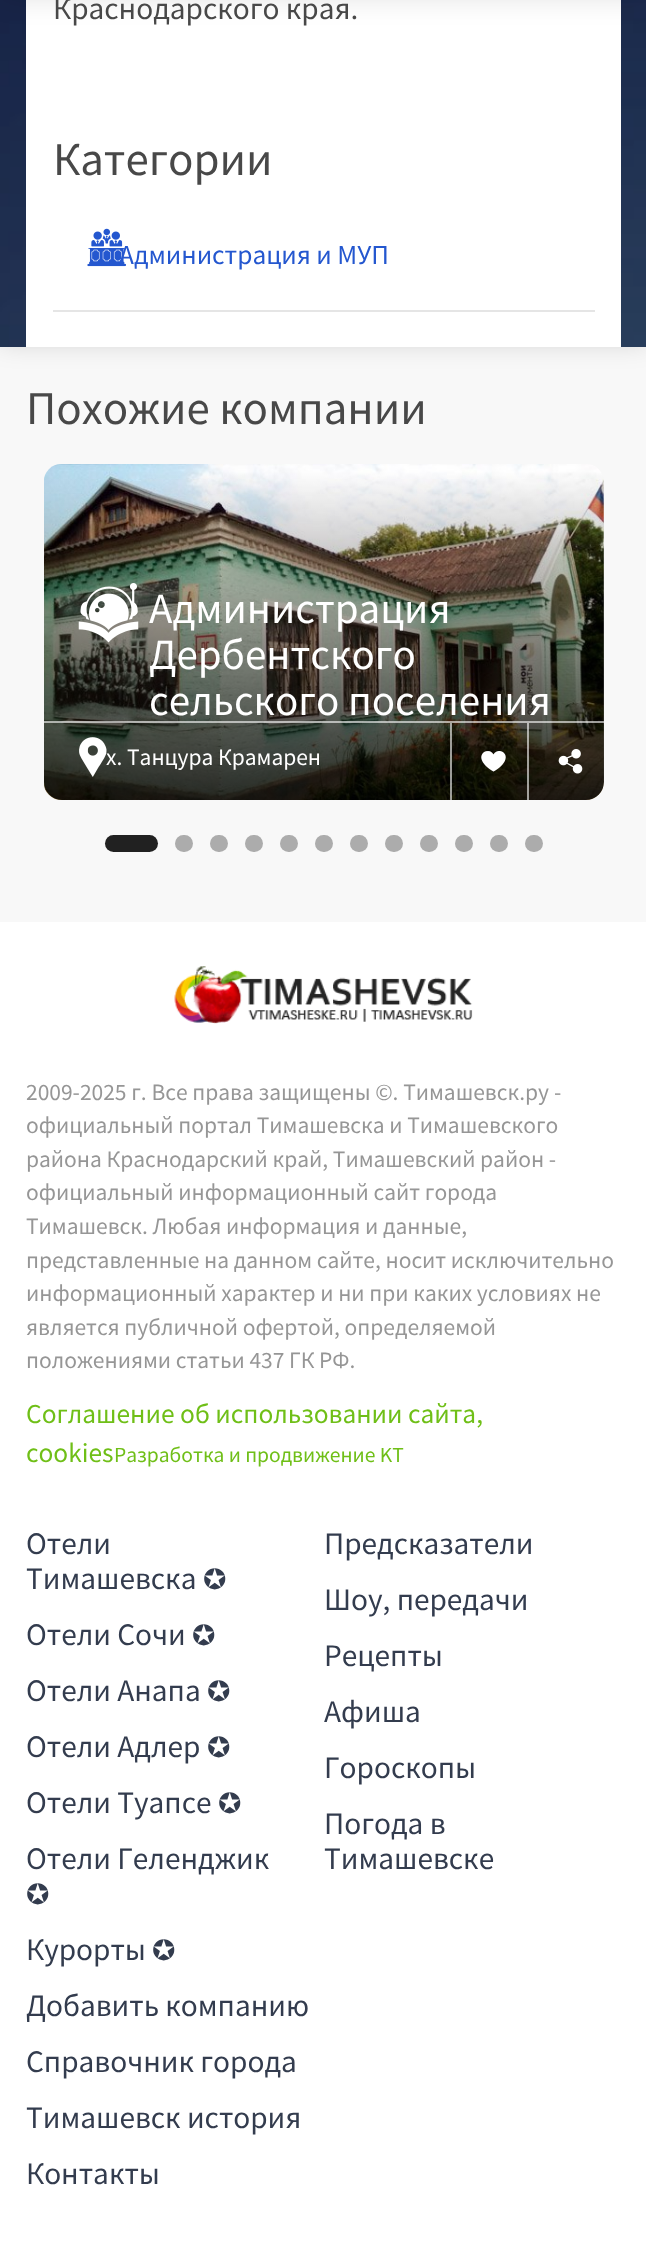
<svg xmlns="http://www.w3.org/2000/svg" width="646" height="2245">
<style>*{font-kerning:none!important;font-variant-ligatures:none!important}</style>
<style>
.a{font:28px Noto Sans SC;fill:#484848}
.b{font:42px Noto Sans SC;fill:#484848}
.c{font:24.5px Noto Sans SC;fill:#2457cf}
.d{font:38.5px Noto Sans SC;fill:#fff}
.e{font:21px Noto Sans SC;fill:#fff}
.f{font:21px Noto Sans SC;fill:#969696}
.g{font:24.5px Noto Sans SC;fill:#6fbf17}
.h{font:19.25px Noto Sans SC;fill:#6fbf17}
.i{font:28px Noto Sans SC;fill:#333c4e}
.j{font:28px DejaVu Sans;fill:#333c4e}
</style>
<defs>
<clipPath id="clip1"><path d="M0 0h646v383h-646zm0-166h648v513h-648z" clip-rule="evenodd"/></clipPath>
<clipPath id="clip2"><rect x="44" y="464" width="560" height="336" rx="18"/></clipPath>
<linearGradient id="g1" gradientUnits="userSpaceOnUse" x1="324" y1="471" x2="324" y2="800"><stop offset="0" stop-color="#000" stop-opacity="0"/><stop offset="0.01" stop-color="#000" stop-opacity="0.01"/><stop offset="1" stop-color="#000" stop-opacity="0.81"/></linearGradient>
</defs>
<rect width="100%" height="100%" fill="#fff"/>
<image href="1.png" x="0" y="0" width="646" height="347"/>
<path fill="#f8f8f8" d="M0 347h646v575H0z"/>
<g clip-path="url(#clip1)">
<path fill="#00000033" filter="blur(14px)" d="M0 -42h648v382H0z"/>
</g>
<path fill="#282a3833" d="M0 0h646v347H0z"/>
<path fill="#fff" d="M26 0h595v347H26z"/>
<path fill="#0000001a" filter="blur(13px)" d="M0 -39h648v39H0z"/>
<path fill="#e5e5e5" d="M53 310h542v2H53z"/>
<image href="2.png" x="87" y="228" width="39" height="39"/>
<image href="3.png" x="44" y="464" width="560" height="336"/>
<g clip-path="url(#clip2)">
<path fill="url(#g1)" d="M44 471h560v311c0 10-8 18-18 18h-524c-10 0-18-8-18-18z"/>
</g>
<image href="4.png" x="78" y="583" width="61" height="60"/>
<path fill="#ffffff99" d="M44 721h560v2H44z"/>
<image href="5.png" x="79" y="737" width="28" height="40"/>
<path fill="#ffffff99" d="M450 723h2v77H450z"/>
<image href="6.png" x="481" y="751" width="25" height="21"/>
<path fill="#ffffff99" d="M527 723h2v77H527z"/>
<image href="7.png" x="558" y="749" width="25" height="25"/>
<rect fill="#212121" x="105" y="835" width="53" height="17" rx="8.5"/>
<rect fill="#acacac" x="175" y="835" width="18" height="17" rx="8.5"/>
<rect fill="#acacac" x="210" y="835" width="18" height="17" rx="8.5"/>
<rect fill="#acacac" x="245" y="835" width="18" height="17" rx="8.5"/>
<rect fill="#acacac" x="280" y="835" width="18" height="17" rx="8.5"/>
<rect fill="#acacac" x="315" y="835" width="18" height="17" rx="8.5"/>
<rect fill="#acacac" x="350" y="835" width="18" height="17" rx="8.5"/>
<rect fill="#acacac" x="385" y="835" width="18" height="17" rx="8.5"/>
<rect fill="#acacac" x="420" y="835" width="18" height="17" rx="8.5"/>
<rect fill="#acacac" x="455" y="835" width="18" height="17" rx="8.5"/>
<rect fill="#acacac" x="490" y="835" width="18" height="17" rx="8.5"/>
<rect fill="#acacac" x="525" y="835" width="18" height="17" rx="8.5"/>
<image href="8.png" x="174" y="966" width="299" height="58"/>
<text class="a" x="53" y="19">Краснодарского края.</text>
<text class="b" x="53" y="175">Категории</text>
<text class="c" x="119" y="264">Администрация и МУП</text>
<text class="b" x="26" y="424">Похожие компании</text>
<text class="d" x="149" y="623">Администрация</text>
<text class="d" x="149" y="669">Дербентского</text>
<text class="d" x="149" y="715">сельского поселения</text>
<text class="e" x="106" y="765">х. Танцура Крамарен</text>
<text class="f" x="26" y="1100">2009-2025 г. Все права защищены ©. Тимашевск.ру</text>
<text class="f" x="554" y="1100">-</text>
<text class="f" x="26" y="1133">официальный портал Тимашевска и Тимашевского</text>
<text class="f" x="26" y="1167">района Краснодарский край, Тимашевский район -</text>
<text class="f" x="26" y="1200">официальный информационный сайт города</text>
<text class="f" x="26" y="1234">Тимашевск. Любая информация и данные,</text>
<text class="f" x="26" y="1268">представленные на данном сайте, носит исключительно</text>
<text class="f" x="26" y="1301">информационный характер и ни при каких условиях не</text>
<text class="f" x="26" y="1335">является публичной офертой, определяемой</text>
<text class="f" x="26" y="1368">положениями статьи 437 ГК РФ.</text>
<text class="g" x="26" y="1423">Соглашение об использовании сайта,</text>
<text class="g" x="26" y="1462">cookies</text>
<text class="h" x="114" y="1462">Разработка и продвижение KT</text>
<text class="i" x="26" y="1554">Отели</text>
<text class="i" x="26" y="1589">Тимашевска</text>
<text class="j" x="203" y="1589">✪</text>
<text class="i" x="26" y="1645">Отели Сочи</text>
<text class="j" x="192" y="1645">✪</text>
<text class="i" x="26" y="1701">Отели Анапа</text>
<text class="j" x="207" y="1701">✪</text>
<text class="i" x="26" y="1757">Отели Адлер</text>
<text class="j" x="207" y="1757">✪</text>
<text class="i" x="26" y="1813">Отели Туапсе</text>
<text class="j" x="218" y="1813">✪</text>
<text class="i" x="26" y="1869">Отели Геленджик</text>
<text class="j" x="26" y="1904">✪</text>
<text class="i" x="26" y="1960">Курорты</text>
<text class="j" x="152" y="1960">✪</text>
<text class="i" x="324" y="1554">Предсказатели</text>
<text class="i" x="324" y="1610">Шоу, передачи</text>
<text class="i" x="324" y="1666">Рецепты</text>
<text class="i" x="324" y="1722">Афиша</text>
<text class="i" x="324" y="1778">Гороскопы</text>
<text class="i" x="324" y="1834">Погода в</text>
<text class="i" x="324" y="1869">Тимашевске</text>
<text class="i" x="26" y="2016">Добавить компанию</text>
<text class="i" x="26" y="2072">Справочник города</text>
<text class="i" x="26" y="2128">Тимашевск история</text>
<text class="i" x="26" y="2184">Контакты</text>
</svg>
